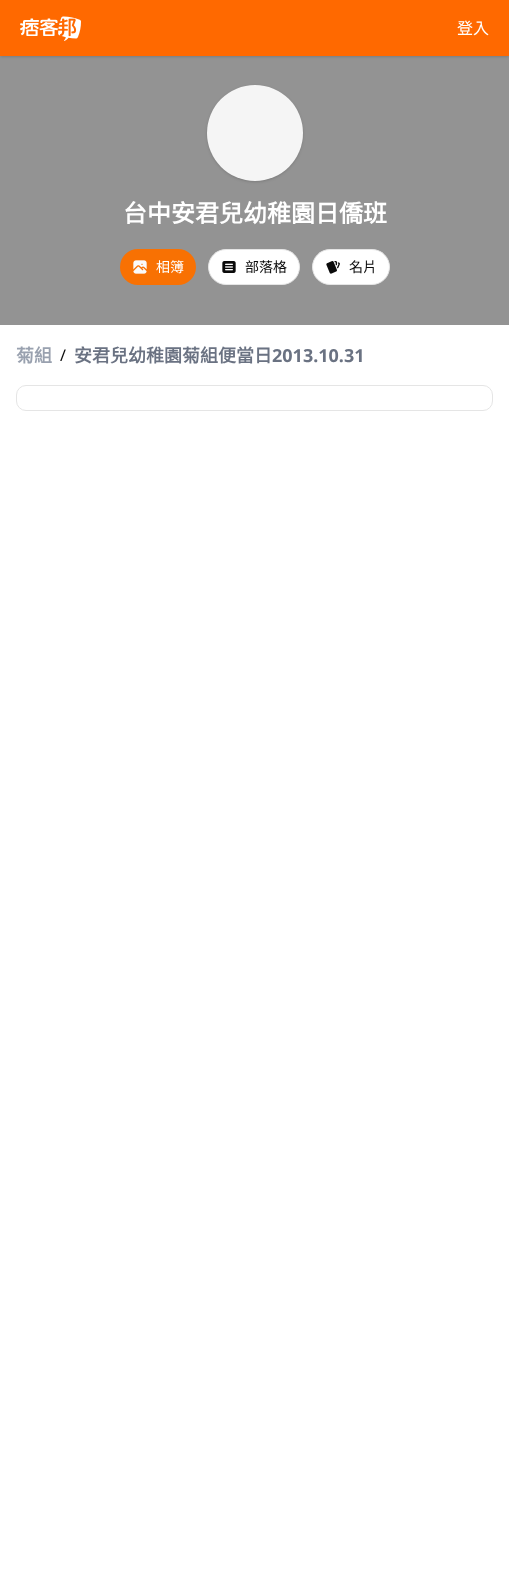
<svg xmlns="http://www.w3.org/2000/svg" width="509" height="1573">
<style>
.a{font:16px Noto Sans CJK TC;fill:#fff}
.b{font:bold 24px Noto Sans CJK TC;fill:#fff}
.c{font:14px Noto Sans CJK TC;fill:#fff}
.d{font:14px Noto Sans CJK TC;fill:#0a0a0a}
.e{font:bold 18px Noto Sans CJK TC;fill:#99a1af}
.f{font:16px Noto Sans;fill:#0a0a0a}
.g{font:bold 18px Noto Sans CJK TC;fill:#6a7282}
.h{font:bold 18px Noto Sans;fill:#6a7282}
</style>
<rect width="100%" height="100%" fill="#fff"/>
<path fill="#939393" d="M0 56h509v269H0z"/>
<path fill="#0000001a" filter="blur(1px)" d="M1 2h507v54H1z"/>
<path fill="#0000001a" filter="blur(1.5px)" d="M0 1h509v56H0z"/>
<path fill="#ff6900" d="M0 0h509v56H0z"/>
<image href="1.png" x="20" y="16" width="61" height="25"/>
<rect fill="#0000001a" filter="blur(1px)" x="208" y="87" width="94" height="94" rx="47"/>
<rect fill="#0000001a" filter="blur(1.5px)" x="207" y="86" width="96" height="96" rx="48"/>
<circle fill="#f5f5f5" cx="255" cy="133" r="48"/>
<rect fill="#f87103" x="120" y="249" width="76" height="36" rx="18"/>
<image href="2.png" x="133" y="260" width="14" height="14"/>
<rect fill="#fff" stroke="#e5e5e5" x="208.5" y="249.5" width="91" height="35" rx="17.5"/>
<image href="3.png" x="222" y="261" width="14" height="12"/>
<rect fill="#fff" stroke="#e5e5e5" x="312.5" y="249.5" width="77" height="35" rx="17.5"/>
<image href="4.png" x="326" y="261" width="14" height="13"/>
<rect fill="none" stroke="#e5e5e5" x="16.5" y="385.5" width="476" height="25" rx="9.5"/>
<text class="a" x="457" y="34">登入</text>
<text class="b" x="123" y="222">台中安君兒幼稚園日僑班</text>
<text class="c" x="156" y="272">相簿</text>
<text class="d" x="245" y="272">部落格</text>
<text class="d" x="349" y="272">名片</text>
<text class="e" x="16" y="362">菊組</text>
<text class="f" x="60" y="361">/</text>
<text class="g" x="74" y="362">安君兒幼稚園菊組便當日</text>
<text class="h" x="272" y="362">2013.10.31</text>
</svg>
